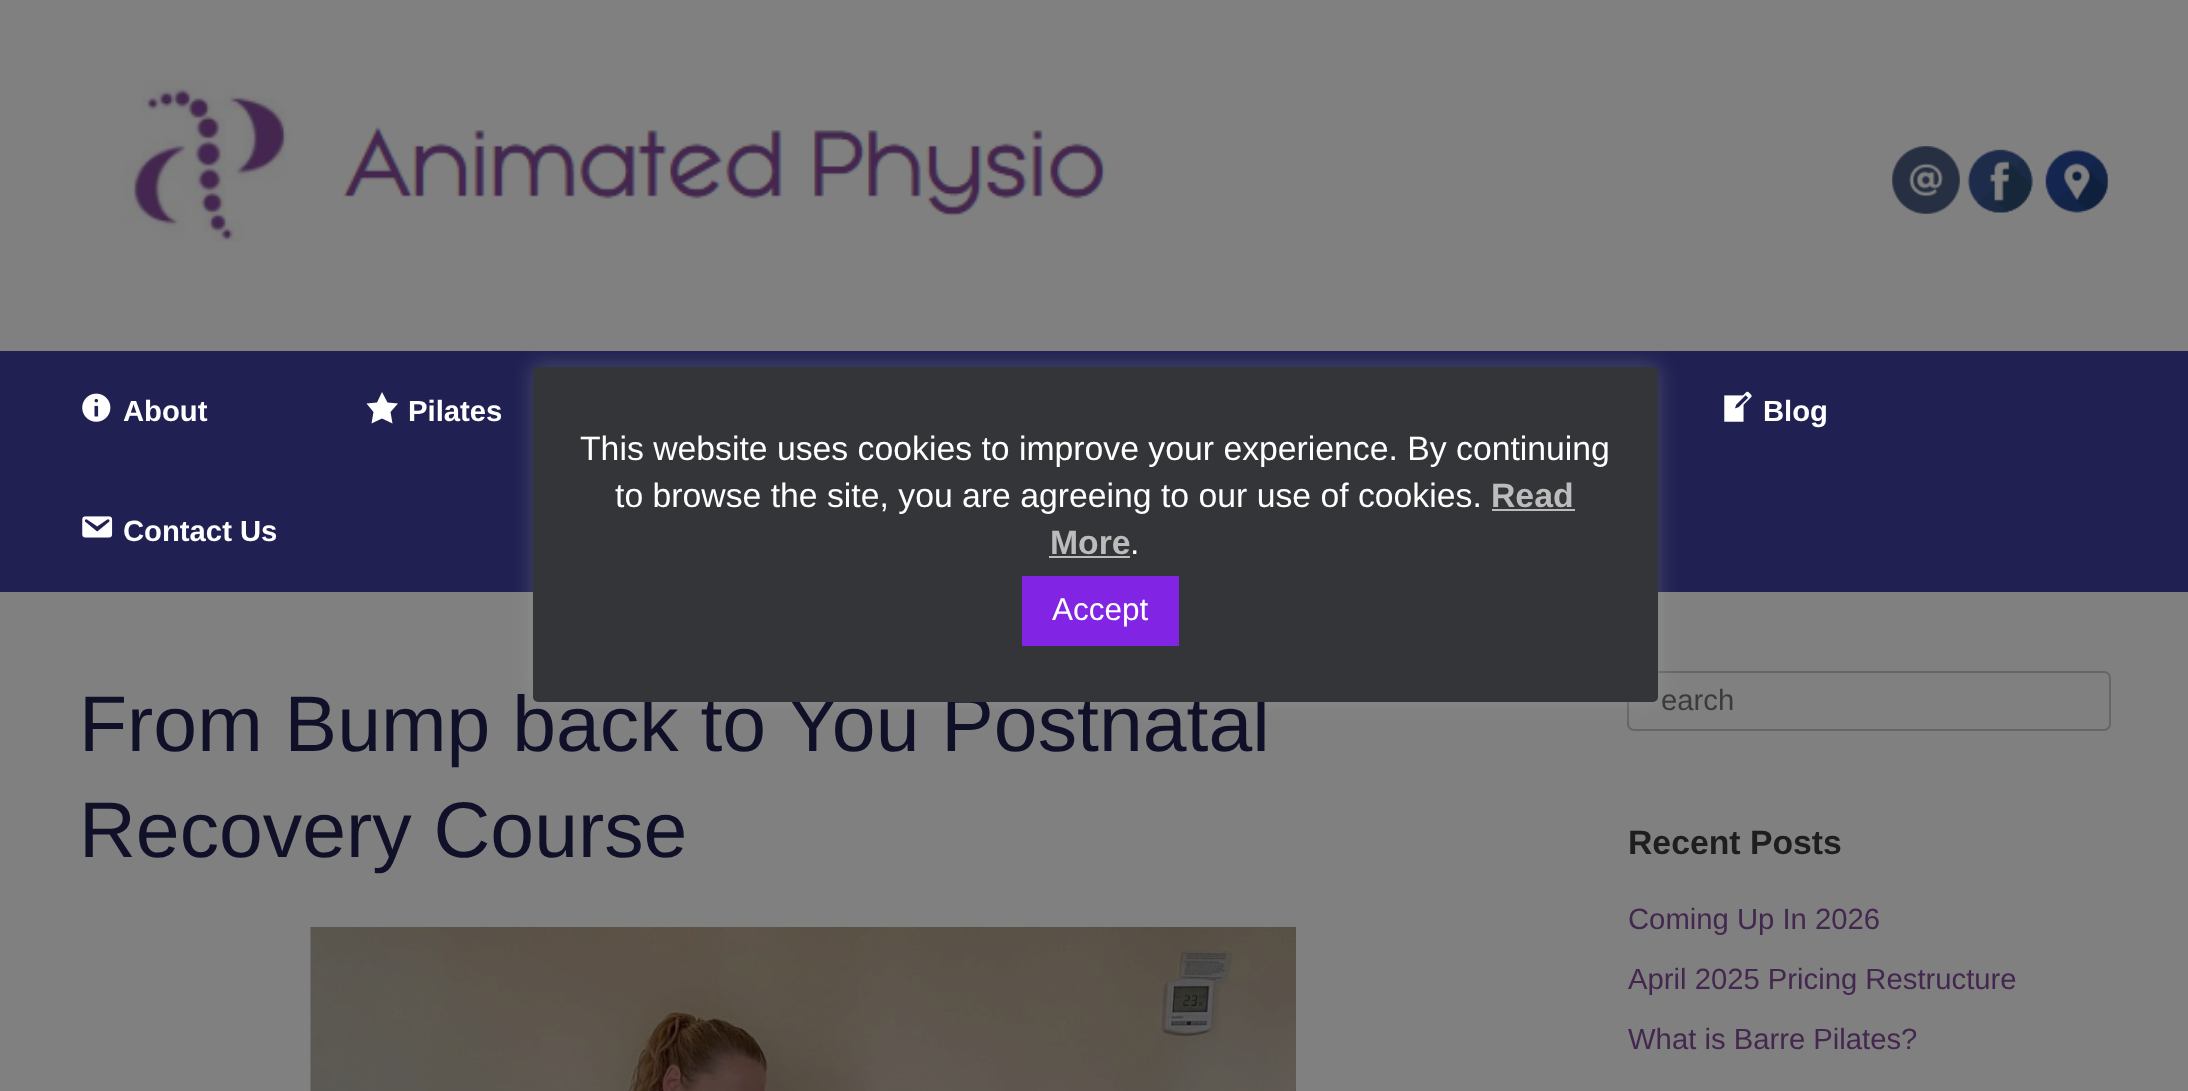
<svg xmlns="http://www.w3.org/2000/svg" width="2188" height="1091">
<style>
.a{font:bold 29.25px Liberation Sans;fill:#fff}
.b{font:78.75px Liberation Sans;fill:#101129}
.c{font:29.25px Liberation Sans;fill:#3b3b3b}
.d{font:bold 33.75px Liberation Sans;fill:#1e1e1e}
.e{font:29.25px Liberation Sans;fill:#44274f}
.f{font:33.75px Liberation Sans;fill:#fff}
.g{font:bold 33.75px Liberation Sans;fill:#bcbcbc}
.h{font:31.5px Liberation Sans;fill:#fff}
</style>
<rect width="100%" height="100%" fill="#808080"/>
<image href="1.png" x="122" y="79" width="984" height="163"/>
<image href="2.png" x="1892" y="146" width="68" height="68"/>
<image href="3.png" x="1967" y="149" width="66" height="64"/>
<image href="4.png" x="2045" y="149" width="64" height="64"/>
<path fill="#202152" d="M0 351h2188v241H0z"/>
<image href="5.png" x="82" y="393" width="29" height="29"/>
<path fill="#fff" d="M382 392l5.5 10.5l10.5 1l-7.5 8.5l2 11.5l-10.5-5l-10.5 5l2-11.5l-7-8.5l10.5-1z"/>
<image href="6.png" x="1724" y="391" width="28" height="31"/>
<image href="7.png" x="82" y="516" width="31" height="22"/>
<image href="8.png" x="310" y="927" width="986" height="164"/>
<rect fill="none" stroke="#666" stroke-width="2" x="1628" y="672" width="482" height="58" rx="6"/>
<rect fill="#acabab4d" filter="blur(11px)" x="533" y="365" width="1125" height="335" rx="5"/>
<text class="a" x="123" y="421">About</text>
<text class="a" x="408" y="421">Pilates</text>
<text class="a" x="1763" y="421">Blog</text>
<text class="a" x="123" y="541">Contact Us</text>
<text class="b" x="79" y="751">From Bump back to You Postnatal</text>
<text class="b" x="79" y="857">Recovery Course</text>
<text class="c" x="1661" y="710">earch</text>
<text class="d" x="1628" y="854">Recent Posts</text>
<text class="e" x="1628" y="929">Coming Up In 2026</text>
<text class="e" x="1628" y="989">April 2025 Pricing Restructure</text>
<text class="e" x="1628" y="1049">What is Barre Pilates?</text>
<rect fill="#343538" x="533" y="367" width="1125" height="335" rx="5"/>
<text class="f" x="580" y="460">This website uses cookies to improve your experience. By continuing</text>
<text class="f" x="615" y="507">to browse the site, you are agreeing to our use of cookies.</text>
<text class="g" x="1491" y="507">Read</text>
<path fill="#bcbcbc" d="M1492 509h83v2H1492z"/>
<text class="g" x="1050" y="554">More</text>
<path fill="#bcbcbc" d="M1049 556h81v2H1049z"/>
<text class="f" x="1130" y="554">.</text>
<path fill="#8224e3" d="M1022 576h157v70H1022z"/>
<text class="h" x="1052" y="620">Accept</text>
</svg>
